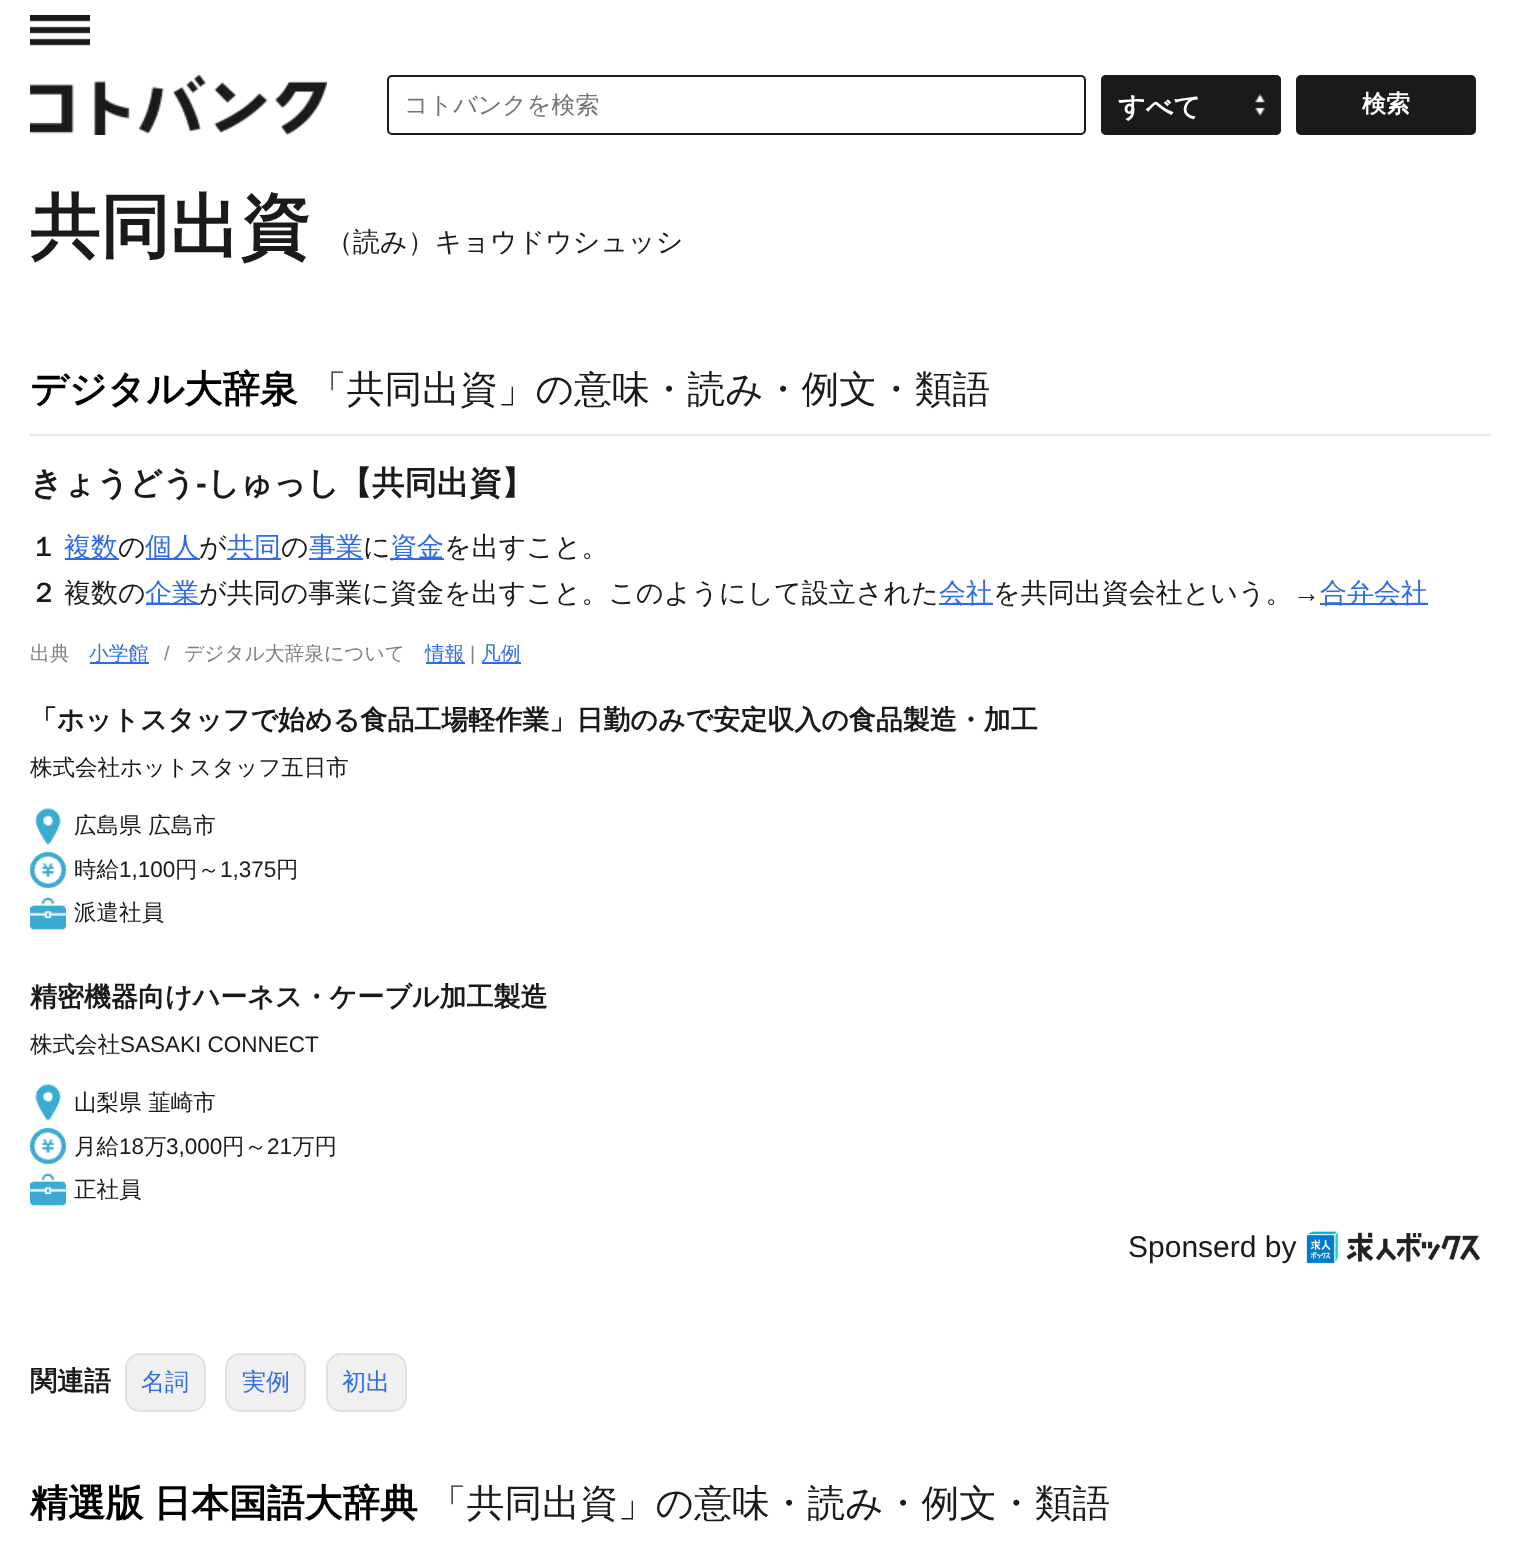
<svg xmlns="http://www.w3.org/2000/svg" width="1520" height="1542">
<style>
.a{font:500 24px WenQuanYi Zen Hei;fill:#757575}
.b{font:bold 27px WenQuanYi Zen Hei;fill:#fff}
.c{font:bold 24px WenQuanYi Zen Hei;fill:#fff}
.d{font:bold 70px WenQuanYi Zen Hei;fill:#1a1a1a}
.e{font:500 27px WenQuanYi Zen Hei;fill:#1a1a1a}
.f{font:bold 37.75px WenQuanYi Zen Hei;fill:#000}
.g{font:500 37.75px WenQuanYi Zen Hei;fill:#1a1a1a}
.h{font:bold 32.4px WenQuanYi Zen Hei;fill:#1a1a1a}
.i{font:bold 32.4px Liberation Sans;fill:#1a1a1a}
.j{font:bold 27px WenQuanYi Zen Hei;fill:#1a1a1a}
.k{font:500 27px WenQuanYi Zen Hei;fill:#2f6be6}
.l{font:27px Liberation Serif;fill:#1a1a1a}
.m{font:500 19.75px WenQuanYi Zen Hei;fill:#808080}
.n{font:500 19.75px WenQuanYi Zen Hei;fill:#2f6be6}
.o{font:19.75px Liberation Sans;fill:#808080}
.p{font:500 22.5px WenQuanYi Zen Hei;fill:#1a1a1a}
.q{font:22.5px Liberation Sans;fill:#1a1a1a}
.r{font:30px Liberation Sans;fill:#1a1a1a}
.s{font:500 24px WenQuanYi Zen Hei;fill:#2f6be6}
</style>
<rect width="100%" height="100%" fill="#fff"/>
<image href="1.png" x="30" y="15" width="60" height="31"/>
<image href="2.png" x="30" y="75" width="297" height="60"/>
<rect fill="none" stroke="#1a1a1a" stroke-width="2" x="388" y="76" width="697" height="58" rx="4"/>
<rect fill="#1a1a1a" x="1101" y="75" width="180" height="60" rx="5"/>
<image href="3.png" x="1255" y="94" width="10" height="22"/>
<rect fill="none" stroke="#1a1a1a" stroke-width="2" x="1102" y="76" width="178" height="58" rx="4"/>
<rect fill="#1a1a1a" stroke="#1a1a1a" stroke-width="2" x="1297" y="76" width="178" height="58" rx="4"/>
<path fill="#e6e6e6" d="M30 434h1461v2H30z"/>
<path fill="#2f6be6" d="M65 558h54v2H65z"/>
<path fill="#2f6be6" d="M146 558h54v2H146z"/>
<path fill="#2f6be6" d="M227 558h54v2H227z"/>
<path fill="#2f6be6" d="M309 558h54v2H309z"/>
<path fill="#2f6be6" d="M390 558h54v2H390z"/>
<path fill="#2f6be6" d="M146 603h54v2H146z"/>
<path fill="#2f6be6" d="M939 603h54v2H939z"/>
<path fill="#2f6be6" d="M1320 603h108v2H1320z"/>
<path fill="#2f6be6" d="M90 662h59v2H90z"/>
<path fill="#2f6be6" d="M426 662h39v2H426z"/>
<path fill="#2f6be6" d="M482 662h39v2H482z"/>
<image href="4.png" x="35" y="808" width="26" height="37"/>
<image href="5.png" x="30" y="852" width="36" height="36"/>
<image href="6.png" x="30" y="897" width="36" height="33"/>
<image href="4.png" x="35" y="1084" width="26" height="37"/>
<image href="5.png" x="30" y="1128" width="36" height="36"/>
<image href="6.png" x="30" y="1173" width="36" height="33"/>
<image href="7.png" x="1306" y="1231" width="174" height="33"/>
<rect fill="#f0f0f0" stroke="#e0e0e0" stroke-width="2" x="126" y="1354" width="79" height="57" rx="14"/>
<rect fill="#f0f0f0" stroke="#e0e0e0" stroke-width="2" x="226" y="1354" width="79" height="57" rx="14"/>
<rect fill="#f0f0f0" stroke="#e0e0e0" stroke-width="2" x="327" y="1354" width="79" height="57" rx="14"/>
<text class="a" x="404" y="113">コトバンクを検索</text>
<text class="b" x="1118" y="116">すべて</text>
<text class="c" x="1362" y="112">検索</text>
<text class="d" x="30" y="251">共同出資</text>
<text class="e" x="326" y="251">（読み）キョウドウシュッシ</text>
<text class="f" x="30" y="402">デジタル大辞泉</text>
<text class="g" x="309" y="402">「共同出資」の意味・読み・例文・類語</text>
<text class="h" x="30" y="494">きょうどう</text>
<text class="i" x="196" y="494">‐</text>
<text class="h" x="207" y="494">しゅっし【共同出資】</text>
<text class="j" x="30" y="556">１</text>
<text class="k" x="64" y="556">複数</text>
<text class="e" x="118" y="556">の</text>
<text class="k" x="145" y="556">個人</text>
<text class="e" x="199" y="556">が</text>
<text class="k" x="227" y="556">共同</text>
<text class="e" x="281" y="556">の</text>
<text class="k" x="309" y="556">事業</text>
<text class="e" x="363" y="556">に</text>
<text class="k" x="390" y="556">資金</text>
<text class="e" x="444" y="556">を出すこと。</text>
<text class="j" x="30" y="602">２</text>
<text class="e" x="64" y="602">複数の</text>
<text class="k" x="145" y="602">企業</text>
<text class="e" x="199" y="602">が共同の事業に資金を出すこと。このようにして設立された</text>
<text class="k" x="939" y="602">会社</text>
<text class="e" x="993" y="602">を共同出資会社という。</text>
<text class="l" x="1293" y="602">→</text>
<text class="k" x="1320" y="602">合弁会社</text>
<text class="m" x="30" y="660">出典</text>
<text class="n" x="89" y="660">小学館</text>
<text class="o" x="164" y="660">/</text>
<text class="m" x="184" y="660">デジタル大辞泉について</text>
<text class="n" x="425" y="660">情報</text>
<text class="o" x="470" y="660">|</text>
<text class="n" x="481" y="660">凡例</text>
<text class="j" x="30" y="729">「ホットスタッフで始める食品工場軽作業」日勤のみで安定収入の食品製造・加工</text>
<text class="p" x="30" y="775">株式会社ホットスタッフ五日市</text>
<text class="p" x="74" y="833">広島県 広島市</text>
<text class="p" x="74" y="877">時給</text>
<text class="q" x="119" y="877">1,100</text>
<text class="p" x="175" y="877">円～</text>
<text class="q" x="220" y="877">1,375</text>
<text class="p" x="276" y="877">円</text>
<text class="p" x="74" y="920">派遣社員</text>
<text class="j" x="30" y="1006">精密機器向けハーネス・ケーブル加工製造</text>
<text class="p" x="30" y="1052">株式会社</text>
<text class="q" x="120" y="1052">SASAKI CONNECT</text>
<text class="p" x="74" y="1110">山梨県 韮崎市</text>
<text class="p" x="74" y="1154">月給</text>
<text class="q" x="119" y="1154">18</text>
<text class="p" x="144" y="1154">万</text>
<text class="q" x="166" y="1154">3,000</text>
<text class="p" x="222" y="1154">円～</text>
<text class="q" x="267" y="1154">21</text>
<text class="p" x="292" y="1154">万円</text>
<text class="p" x="74" y="1197">正社員</text>
<text class="r" x="1128" y="1257">Sponserd by</text>
<text class="j" x="30" y="1390">関連語</text>
<text class="s" x="141" y="1390">名詞</text>
<text class="s" x="242" y="1390">実例</text>
<text class="s" x="342" y="1390">初出</text>
<text class="f" x="30" y="1516" word-spacing="-1">精選版 日本国語大辞典</text>
<text class="g" x="429" y="1516">「共同出資」の意味・読み・例文・類語</text>
</svg>
